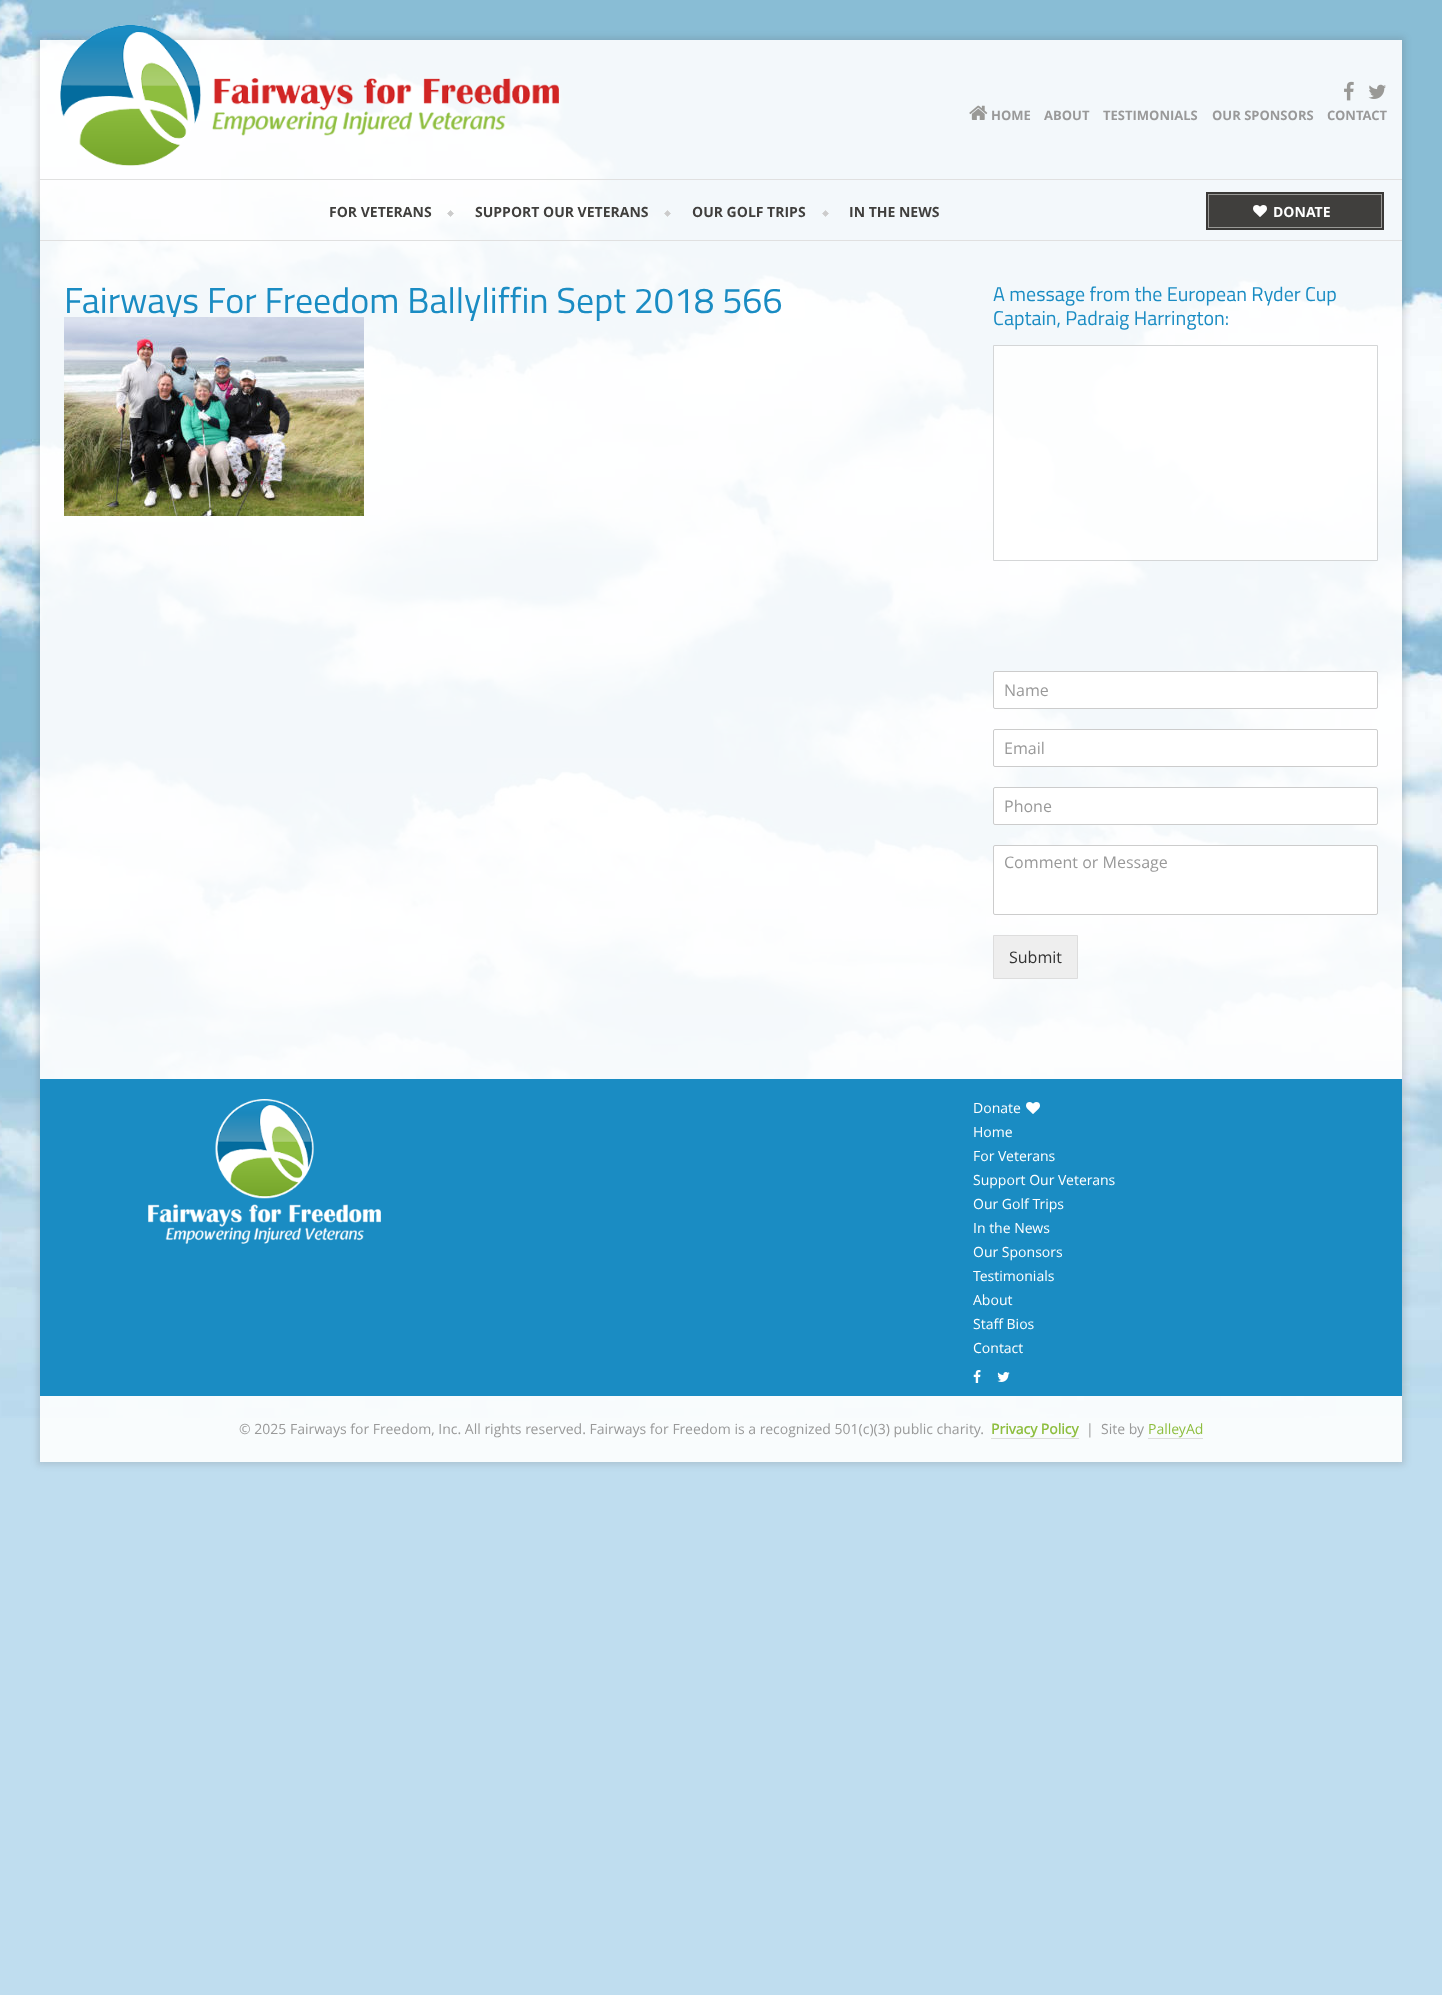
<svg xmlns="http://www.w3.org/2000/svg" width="1442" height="1995">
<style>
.a{font:bold 13px 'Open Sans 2';fill:#999}
.b{font:bold 14px 'Open Sans 2';fill:#403f3d}
.c{font:bold 14px 'Open Sans 2';fill:#fff}
.d{font:36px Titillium;fill:#1a8cc3}
.e{font:20px Titillium;fill:#1a8cc3}
.f{font:16px Open Sans;fill:#999}
.g{font:16px Open Sans;fill:#333}
.h{font:14px Open Sans;fill:#fff}
.i{font:14px Open Sans;fill:#999}
.j{font:bold 14px Open Sans;fill:#8ebe3f}
.k{font:14px Open Sans;fill:#8ebe3f}
</style>
<defs>
<clipPath id="clip1"><path d="M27 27h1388v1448h-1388zm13 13h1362v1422h-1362z" clip-rule="evenodd"/></clipPath>
</defs>
<rect width="100%" height="100%" fill="#bfddef"/>
<path fill="#f9fcfd" d="M40 1418h1362v44H40z"/>
<image href="1.png" x="0" y="0" width="1442" height="1418"/>
<g clip-path="url(#clip1)">
<path fill="#403f3d26" filter="blur(3px)" d="M37 37h1368v1428H37z"/>
</g>
<path fill="#e0e0e0" d="M40 179h1362v1H40z"/>
<image href="2.png" x="60" y="25" width="499" height="141"/>
<image href="3.png" x="1344" y="81" width="10" height="20"/>
<image href="4.png" x="1368" y="84" width="18" height="15"/>
<image href="5.png" x="969" y="105" width="19" height="15"/>
<path fill="#e0e0e0" d="M40 240h1362v1H40z"/>
<image href="6.png" x="447" y="210" width="7" height="7"/>
<image href="7.png" x="664" y="210" width="7" height="7"/>
<image href="8.png" x="822" y="210" width="7" height="7"/>
<path fill="none" stroke="#3a3937" stroke-width="2" d="M1207 193h176v36H1207z"/>
<path fill="#403f3d" stroke="#999996" d="M1208.5 194.5h173v33H1208.5z"/>
<image href="9.png" x="1253" y="205" width="14" height="12"/>
<path fill="#ffffffcc" stroke="#d4d6d7" d="M993.5 345.5h384v215H993.5z"/>
<rect fill="#fff" stroke="#ccc" x="993.5" y="671.5" width="384" height="37" rx="1.5"/>
<rect fill="#fff" stroke="#ccc" x="993.5" y="729.5" width="384" height="37" rx="1.5"/>
<rect fill="#fff" stroke="#ccc" x="993.5" y="787.5" width="384" height="37" rx="1.5"/>
<rect fill="#fff" stroke="#ccc" x="993.5" y="845.5" width="384" height="69" rx="1.5"/>
<path fill="#eee" stroke="#ddd" d="M993.5 935.5h84v43H993.5z"/>
<path fill="#1a8cc3" d="M40 1079h1362v317H40z"/>
<image href="11.png" x="148" y="1099" width="233" height="145"/>
<image href="12.png" x="1026" y="1102" width="14" height="12"/>
<image href="13.png" x="973" y="1370" width="8" height="13"/>
<image href="14.png" x="997" y="1372" width="13" height="10"/>
<path fill="#ddd" d="M991 1438h88v1H991z"/>
<path fill="#ddd" d="M1148 1438h55v1H1148z"/>
<text class="a" x="991" y="120">HOME</text>
<text class="a" x="1044" y="120">ABOUT</text>
<text class="a" x="1103" y="120">TESTIMONIALS</text>
<text class="a" x="1212" y="120">OUR SPONSORS</text>
<text class="a" x="1327" y="120">CONTACT</text>
<text class="b" x="329" y="217">FOR VETERANS</text>
<text class="b" x="475" y="217">SUPPORT OUR VETERANS</text>
<text class="b" x="692" y="217">OUR GOLF TRIPS</text>
<text class="b" x="849" y="217">IN THE NEWS</text>
<text class="c" x="1273" y="217">DONATE</text>
<text class="d" x="64" y="313">Fairways For Freedom Ballyliffin Sept 2018 566</text>
<image href="10.png" x="64" y="317" width="300" height="199"/>
<text class="e" x="993" y="301">A message from the European Ryder Cup</text>
<text class="e" x="993" y="325">Captain, Padraig Harrington:</text>
<text class="f" x="1004" y="696">Name</text>
<text class="f" x="1004" y="754">Email</text>
<text class="f" x="1004" y="812">Phone</text>
<text class="f" x="1004" y="868">Comment or Message</text>
<text class="g" x="1009" y="963">Submit</text>
<text class="h" x="973" y="1113">Donate</text>
<text class="h" x="973" y="1137">Home</text>
<text class="h" x="973" y="1161">For Veterans</text>
<text class="h" x="973" y="1185">Support Our Veterans</text>
<text class="h" x="973" y="1209">Our Golf Trips</text>
<text class="h" x="973" y="1233">In the News</text>
<text class="h" x="973" y="1257">Our Sponsors</text>
<text class="h" x="973" y="1281">Testimonials</text>
<text class="h" x="973" y="1305">About</text>
<text class="h" x="973" y="1329">Staff Bios</text>
<text class="h" x="973" y="1353">Contact</text>
<text class="i" x="239" y="1434">© 2025 Fairways for Freedom, Inc. All rights reserved. Fairways for Freedom is a recognized 501(c)(3) public charity.</text>
<text class="j" x="991" y="1434">Privacy Policy</text>
<text class="i" x="1086" y="1434">|</text>
<text class="i" x="1101" y="1434">Site by</text>
<text class="k" x="1148" y="1434">PalleyAd</text>
</svg>
